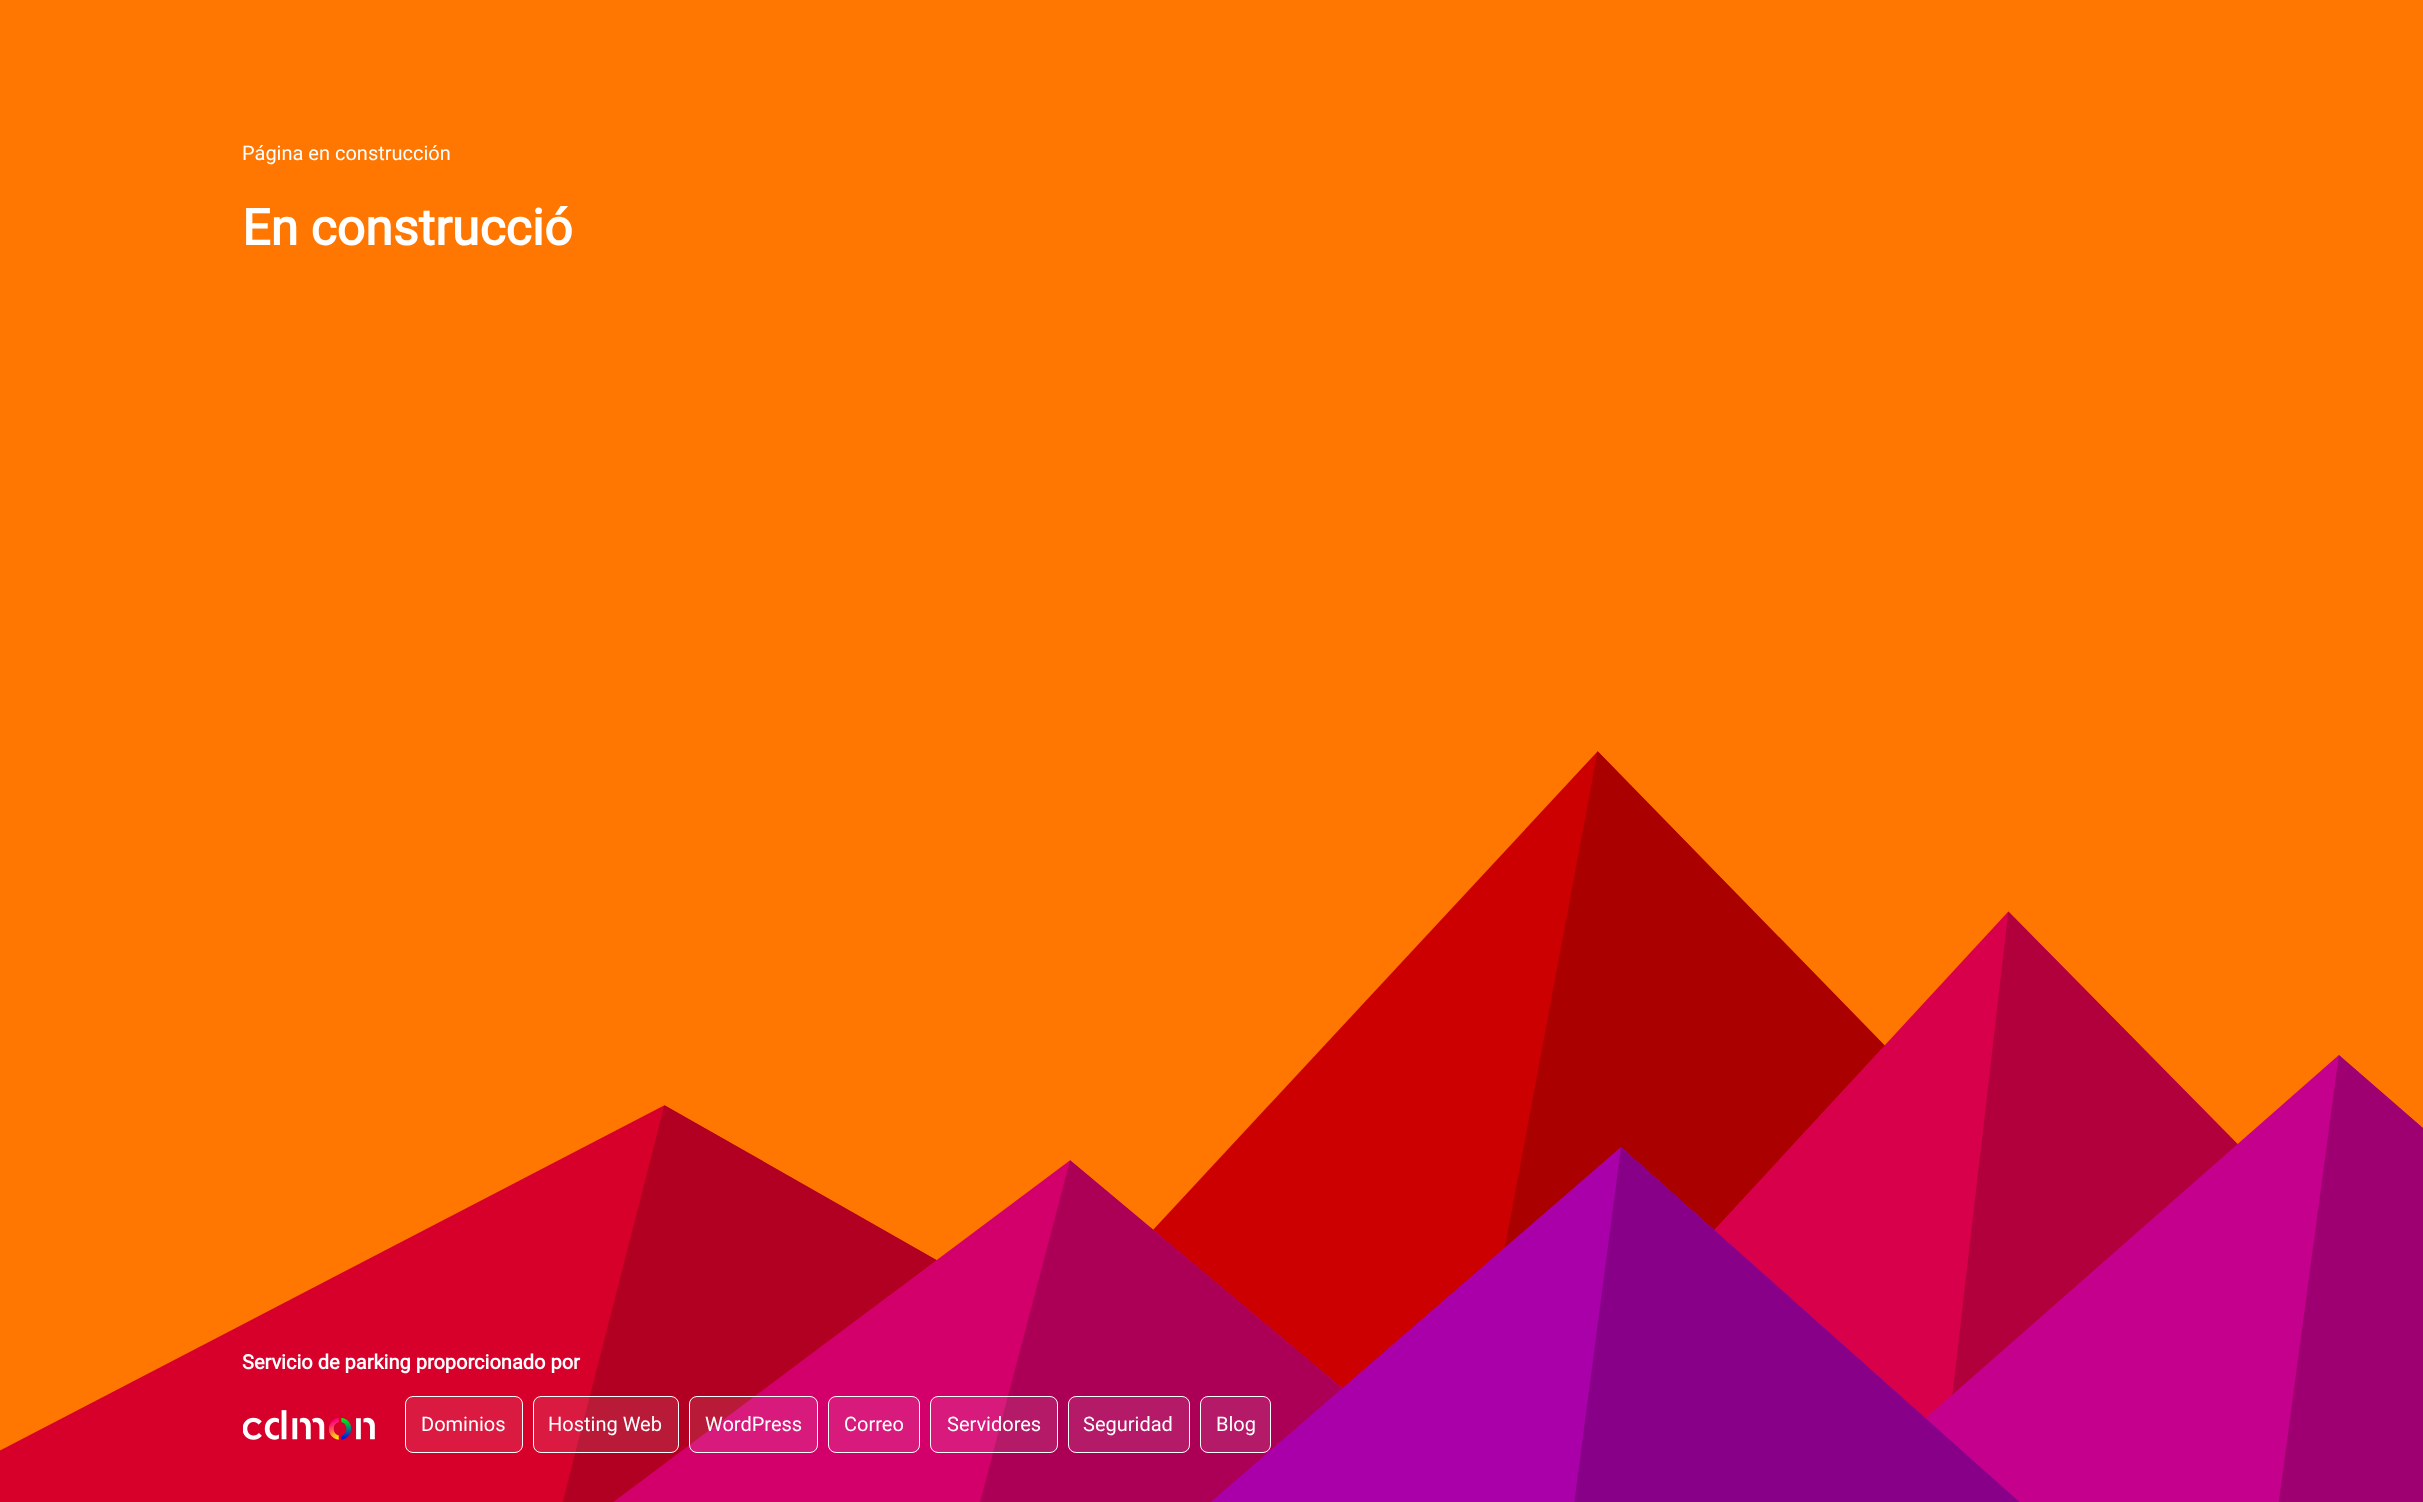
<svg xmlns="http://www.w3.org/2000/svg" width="2423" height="1502">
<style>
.a{font:20px Roboto;fill:#fff}
.b{font:bold 50px Roboto;fill:#fff}
.c{font:bold 20px Roboto;fill:#fff}
</style>
<rect width="100%" height="100%" fill="#f70"/>
<image href="1.png" x="0" y="751" width="2423" height="751"/>
<image href="2.png" x="243" y="1410" width="132" height="30"/>
<rect fill="#da1a40" stroke="#fff" x="405.5" y="1396.5" width="117" height="56" rx="7.5"/>
<rect fill="#ffffff1a" stroke="#fff" x="533.5" y="1396.5" width="145" height="56" rx="7.5"/>
<rect fill="#ffffff1a" stroke="#fff" x="689.5" y="1396.5" width="128" height="56" rx="7.5"/>
<rect fill="#d71a7b" stroke="#fff" x="828.5" y="1396.5" width="91" height="56" rx="7.5"/>
<rect fill="#ffffff1a" stroke="#fff" x="930.5" y="1396.5" width="127" height="56" rx="7.5"/>
<rect fill="#b41a68" stroke="#fff" x="1068.5" y="1396.5" width="121" height="56" rx="7.5"/>
<rect fill="#b41a68" stroke="#fff" x="1200.5" y="1396.5" width="70" height="56" rx="7.5"/>
<text class="a" x="242" y="160">Página en construcción</text>
<text class="b" x="242" y="245">En construcció</text>
<text class="c" x="242" y="1369">Servicio de parking proporcionado por</text>
<text class="a" x="421" y="1431">Dominios</text>
<text class="a" x="548" y="1431">Hosting Web</text>
<text class="a" x="705" y="1431">WordPress</text>
<text class="a" x="844" y="1431">Correo</text>
<text class="a" x="947" y="1431">Servidores</text>
<text class="a" x="1083" y="1431">Seguridad</text>
<text class="a" x="1216" y="1431">Blog</text>
</svg>
